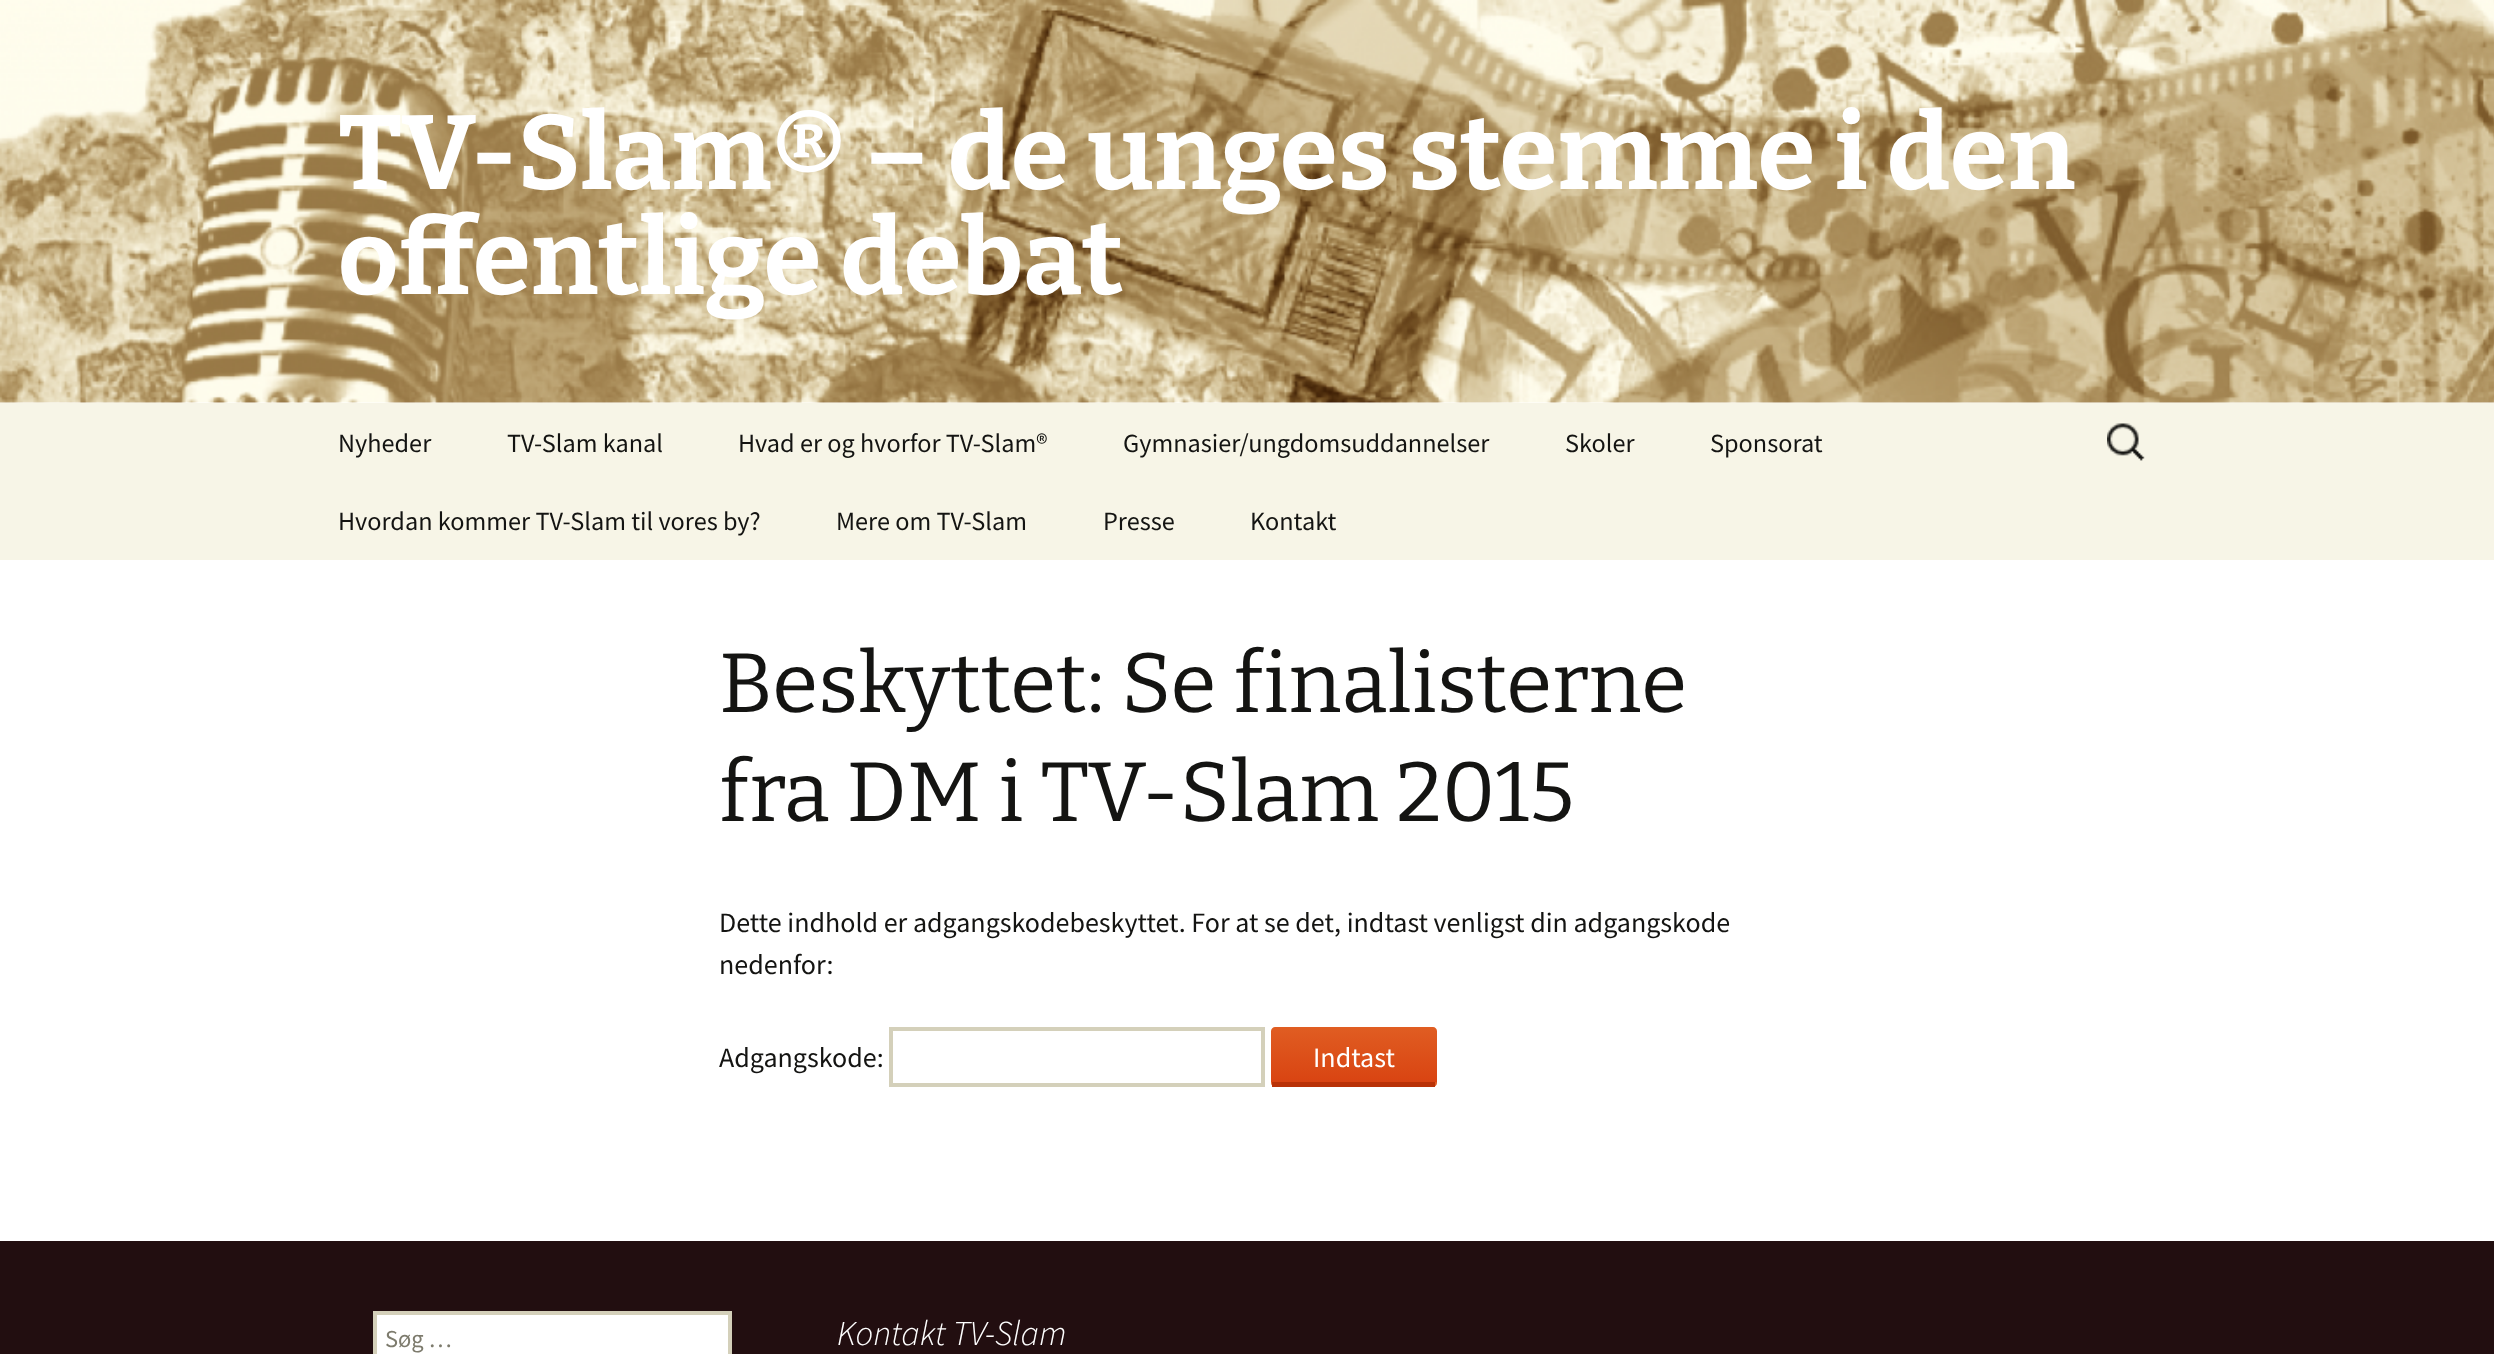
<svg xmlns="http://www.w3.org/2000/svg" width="2494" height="1354">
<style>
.a{font:bold 105px Bitter;fill:#fff}
.b{font:26.25px Source Sans Pro;fill:#141412}
.c{font:84px Bitter;fill:#141412}
.d{font:28px Source Sans Pro;fill:#141412}
.e{font:28px Source Sans Pro;fill:#fff}
.f{font:24.5px Source Sans Pro;fill:#7d7b6d}
.g{font:italic 300 35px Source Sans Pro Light;fill:#fff}
</style>
<defs>
<linearGradient id="g1" gradientUnits="userSpaceOnUse" x1="1354" y1="1027" x2="1354" y2="1082"><stop offset="0" stop-color="#e05d22"/><stop offset="1" stop-color="#d94412"/></linearGradient>
<linearGradient id="g2" gradientUnits="userSpaceOnUse" x1="1354" y1="1082" x2="1354" y2="1136"><stop offset="0" stop-color="#e05d22"/><stop offset="1" stop-color="#d94412"/></linearGradient>
</defs>
<rect width="100%" height="100%" fill="#fff"/>
<image href="1.png" x="0" y="0" width="2494" height="403"/>
<path fill="#f7f5e7" d="M0 403h2494v157H0z"/>
<image href="2.png" x="2107" y="423" width="38" height="38"/>
<path fill="none" stroke="#d4d0ba" stroke-width="4" d="M891 1029h372v56H891z"/>
<path fill="url(#g1)" d="M1275 1027h158c2 0 4 2 4 4v51h-166v-51c0-2 2-4 4-4z"/>
<path fill="url(#g2)" d="M1271 1082h166v1c0 2-2 4-4 4h-158c-2 0-4-2-4-4z"/>
<path fill="#b93207" d="M1272 1082h163v5H1272z"/>
<path fill="#220e10" d="M0 1241h2494v113H0z"/>
<path fill="#fff" stroke="#d4d0ba" stroke-width="4" d="M375 1313h355v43H375z"/>
<text class="a" x="338" y="189">TV-Slam® – de unges stemme i den</text>
<text class="a" x="338" y="294">offentlige debat</text>
<text class="b" x="338" y="452">Nyheder</text>
<text class="b" x="507" y="452">TV-Slam kanal</text>
<text class="b" x="738" y="452">Hvad er og hvorfor TV-Slam®</text>
<text class="b" x="1123" y="452">Gymnasier/ungdomsuddannelser</text>
<text class="b" x="1565" y="452">Skoler</text>
<text class="b" x="1710" y="452">Sponsorat</text>
<text class="b" x="338" y="530">Hvordan kommer TV-Slam til vores by?</text>
<text class="b" x="836" y="530">Mere om TV-Slam</text>
<text class="b" x="1103" y="530">Presse</text>
<text class="b" x="1250" y="530">Kontakt</text>
<text class="c" x="719" y="712">Beskyttet: Se finalisterne</text>
<text class="c" x="719" y="821">fra DM i TV-Slam 2015</text>
<text class="d" x="719" y="932">Dette indhold er adgangskodebeskyttet. For at se det, indtast venligst din adgangskode</text>
<text class="d" x="719" y="974">nedenfor:</text>
<text class="d" x="719" y="1067">Adgangskode:</text>
<text class="e" x="1313" y="1067">Indtast</text>
<text class="f" x="385" y="1347">Søg …</text>
<text class="g" x="837" y="1345">Kontakt TV-Slam</text>
</svg>
